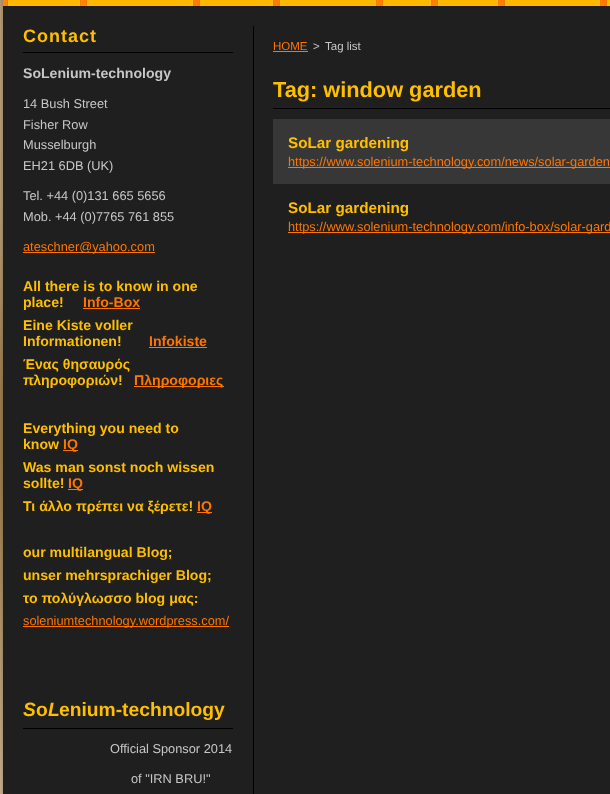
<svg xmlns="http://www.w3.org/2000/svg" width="610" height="794">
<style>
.a{font:bold 18px Liberation Sans;letter-spacing:1px;fill:#ffbf01}
.b{font:bold 14.1px Liberation Sans;fill:#c7c7c7}
.c{font:12.8px Liberation Sans;fill:#c7c7c7}
.d{font:12.8px Liberation Sans;fill:#ff7500}
.e{font:bold 14.1px Liberation Sans;fill:#ffbf01}
.f{font:bold 14.1px Liberation Sans;fill:#ff7500}
.g{font:italic bold 19.25px Liberation Sans;fill:#ffbf01}
.h{font:bold 19.25px Liberation Sans;fill:#ffbf01}
.i{font:11.5px Liberation Sans;fill:#ff7500}
.j{font:11.5px Liberation Sans;fill:#c7c7c7}
.k{font:bold 21.75px Liberation Sans;fill:#ffbf01}
.l{font:bold 15.25px Liberation Sans;fill:#ffbf01}
</style>
<rect width="100%" height="100%" fill="#fff"/>
<image href="1.png" x="0" y="597" width="3" height="197"/>
<image href="2.png" x="0" y="499" width="3" height="98"/>
<image href="3.png" x="0" y="0" width="3" height="499"/>
<image href="4.png" x="1" y="0" width="605" height="6"/>
<image href="5.png" x="7" y="0" width="8" height="6"/>
<image href="6.png" x="15" y="0" width="66" height="6"/>
<image href="7.png" x="86" y="0" width="8" height="6"/>
<image href="8.png" x="94" y="0" width="100" height="6"/>
<image href="7.png" x="199" y="0" width="8" height="6"/>
<image href="9.png" x="207" y="0" width="67" height="6"/>
<image href="5.png" x="279" y="0" width="8" height="6"/>
<image href="10.png" x="287" y="0" width="90" height="6"/>
<image href="7.png" x="382" y="0" width="8" height="6"/>
<image href="11.png" x="390" y="0" width="42" height="6"/>
<image href="5.png" x="437" y="0" width="8" height="6"/>
<image href="12.png" x="445" y="0" width="54" height="6"/>
<image href="7.png" x="504" y="0" width="8" height="6"/>
<image href="13.png" x="512" y="0" width="89" height="6"/>
<image href="14.png" x="606" y="0" width="4" height="6"/>
<image href="15.png" x="1" y="6" width="609" height="788"/>
<path fill="#000" d="M253 26h1v768H253z"/>
<path fill="#000" d="M23 52h210v1H23z"/>
<path fill="#ff7500" d="M23 252h132v1H23z"/>
<path fill="#ff7500" d="M83 308h57v1H83z"/>
<path fill="#ff7500" d="M149 347h58v1H149z"/>
<path fill="#ff7500" d="M134 386h90v1H134z"/>
<path fill="#ff7500" d="M63 450h15v1H63z"/>
<path fill="#ff7500" d="M68 489h15v1H68z"/>
<path fill="#ff7500" d="M197 512h15v1H197z"/>
<path fill="#ff7500" d="M23 626h206v1H23z"/>
<path fill="#000" d="M23 728h210v1H23z"/>
<path fill="#ff7500" d="M273 51h35v1H273z"/>
<path fill="#000" d="M273 108h337v1H273z"/>
<path fill="#373737" d="M273 119h337v65H273z"/>
<path fill="#ff7500" d="M288 167h322v1H288z"/>
<path fill="#ff7500" d="M288 232h322v1H288z"/>
<text class="a" x="23" y="42">Contact</text>
<text class="b" x="23" y="78">SoLenium-technology</text>
<text class="c" x="23" y="108">14 Bush Street</text>
<text class="c" x="23" y="129">Fisher Row</text>
<text class="c" x="23" y="149">Musselburgh</text>
<text class="c" x="23" y="170">EH21 6DB (UK)</text>
<text class="c" x="23" y="200">Tel. +44 (0)131 665 5656</text>
<text class="c" x="23" y="221">Mob. +44 (0)7765 761 855</text>
<text class="d" x="23" y="251">ateschner@yahoo.com</text>
<text class="e" x="23" y="291">All there is to know in one</text>
<text class="e" x="23" y="307">place!</text>
<text class="f" x="83" y="307">Info-Box</text>
<text class="e" x="23" y="330">Eine Κiste voller</text>
<text class="e" x="23" y="346">Informationen!</text>
<text class="f" x="149" y="346">Infokiste</text>
<text class="e" x="23" y="369">Ένας θησαυρός</text>
<text class="e" x="23" y="385">πληροφοριών!</text>
<text class="f" x="134" y="385">Πληροφοριες</text>
<text class="e" x="23" y="433">Everything you need to</text>
<text class="e" x="23" y="449">know</text>
<text class="f" x="63" y="449">IQ</text>
<text class="e" x="23" y="472">Was man sonst noch wissen</text>
<text class="e" x="23" y="488">sollte!</text>
<text class="f" x="68" y="488">IQ</text>
<text class="e" x="23" y="511">Τι άλλο πρέπει να ξέρετε!</text>
<text class="f" x="197" y="511">IQ</text>
<text class="e" x="23" y="557">our multilangual Blog;</text>
<text class="e" x="23" y="580">unser mehrsprachiger Blog;</text>
<text class="e" x="23" y="603">το πολύγλωσσο blog μας:</text>
<text class="d" x="23" y="625">soleniumtechnology.wordpress.com/</text>
<text class="g" x="23" y="716">S</text>
<text class="h" x="36" y="716">o</text>
<text class="g" x="48" y="716">L</text>
<text class="h" x="59" y="716">enium-technology</text>
<text class="c" x="110" y="753">Official Sponsor 2014</text>
<text class="c" x="131" y="783">of "IRN BRU!"</text>
<text class="i" x="273" y="50">HOME</text>
<text class="j" x="313" y="50">&gt;</text>
<text class="j" x="325" y="50">Tag list</text>
<text class="k" x="273" y="97">Tag: window garden</text>
<text class="l" x="288" y="148">SoLar gardening</text>
<text class="d" x="288" y="166">https://www.solenium-technology.com/news/solar-garden</text>
<text class="l" x="288" y="213">SoLar gardening</text>
<text class="d" x="288" y="231">https://www.solenium-technology.com/info-box/solar-gard</text>
</svg>
